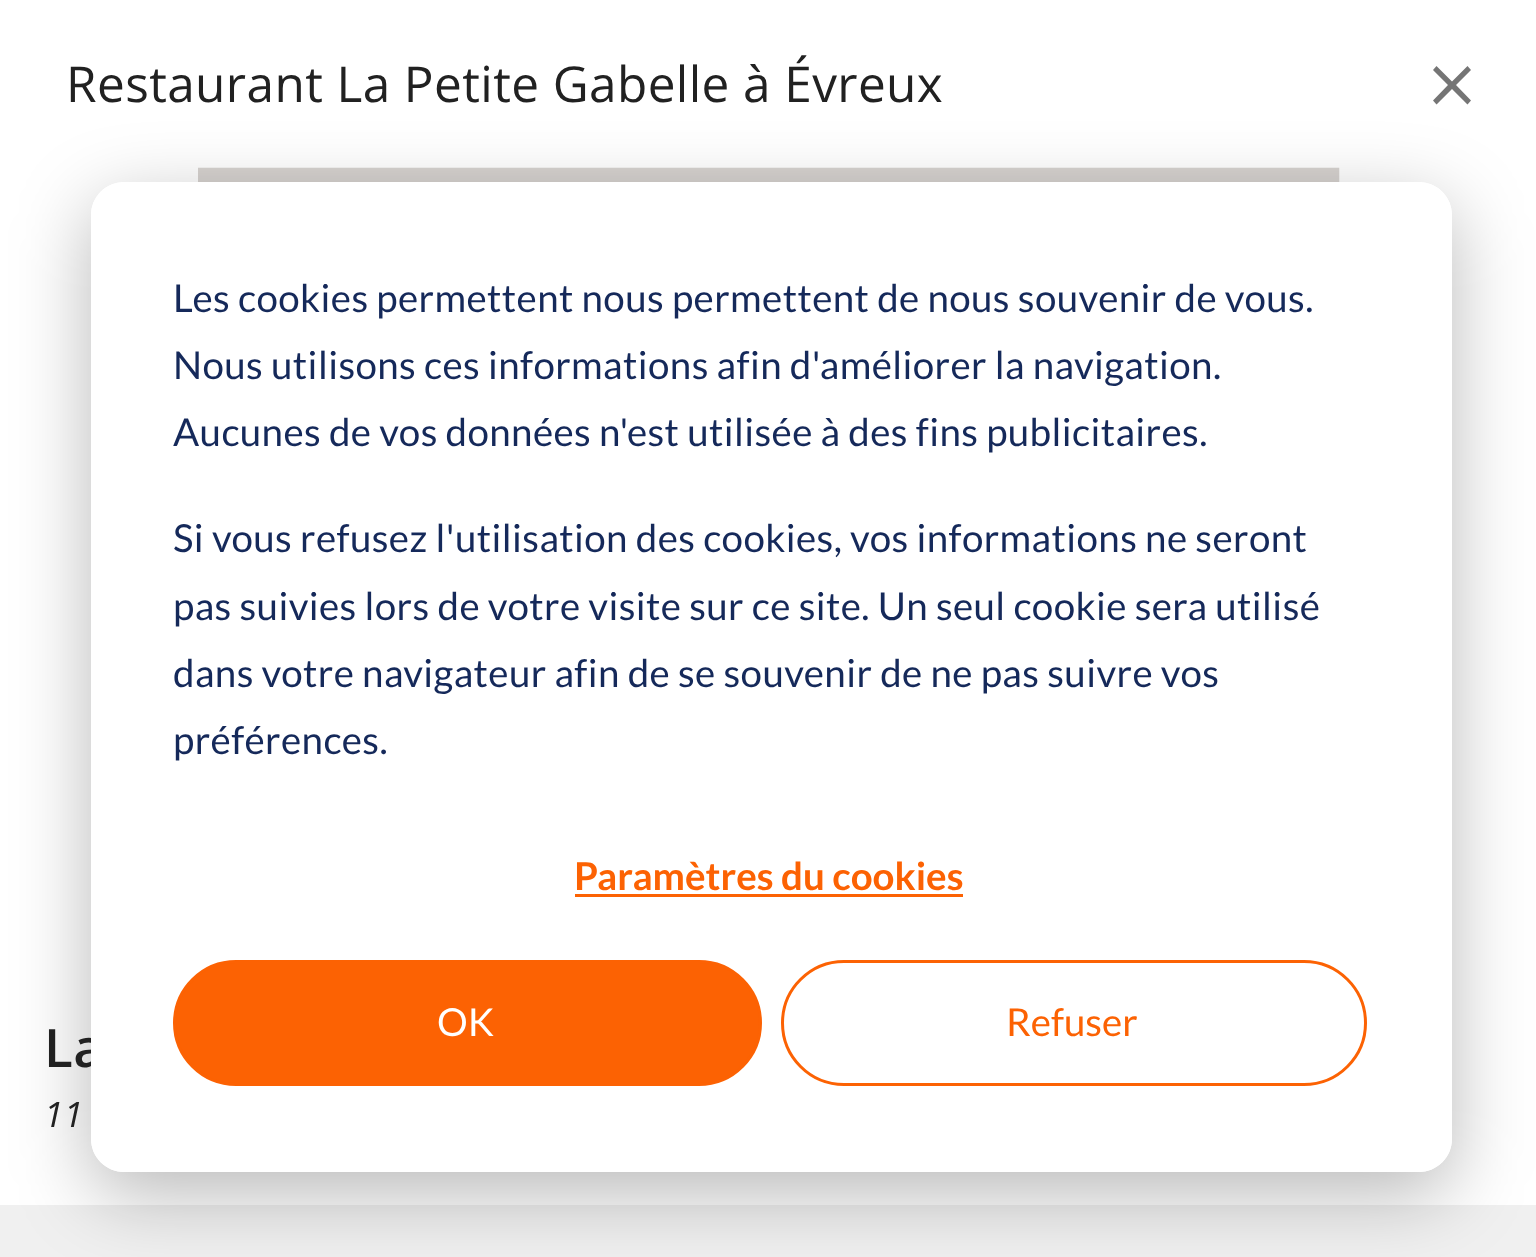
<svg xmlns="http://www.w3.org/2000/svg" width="1536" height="1257">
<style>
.a{font:49.5px Open Sans;letter-spacing:0.4px;fill:#212121}
.b{font:600 53px Open Sans;letter-spacing:0.4px;fill:#212121}
.c{font:italic 35px Open Sans;letter-spacing:0.4px;fill:#212121}
.d{font:38.5px Lato;letter-spacing:0.4px;fill:#15295a}
.e{font:bold 38.5px Lato;fill:#fc6203}
.f{font:38.5px Lato;fill:#fff}
.g{font:38.5px Lato;fill:#fc6203}
</style>
<defs>
<clipPath id="clip1"><path d="M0 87h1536v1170h-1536zm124 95h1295c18 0 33 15 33 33v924c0 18-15 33-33 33h-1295c-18 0-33-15-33-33v-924c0-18 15-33 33-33z" clip-rule="evenodd"/></clipPath>
</defs>
<rect width="100%" height="100%" fill="#fff"/>
<path fill="#757575" d="M1471 70l-3.5-4l-15.5 15.5l-15.5-15.5l-3.5 4l15 15l-15 15.5l3.5 4l15.5-15.5l15.5 15.5l3.5-4l-15-15.5z"/>
<image href="1.png" x="198" y="167" width="1142" height="15"/>
<path fill="#f0f0f0" d="M0 1205h1536v52H0z"/>
<g clip-path="url(#clip1)">
<rect fill="#00000047" filter="blur(38.5px)" x="91" y="204" width="1361" height="990" rx="33"/>
</g>
<text class="a" x="66" y="102">Restaurant La Petite Gabelle à Évreux</text>
<text class="b" x="44" y="1067">La</text>
<text class="c" x="44" y="1127">11</text>
<rect fill="#fff" x="91" y="182" width="1361" height="990" rx="33"/>
<text class="d" x="173" y="312">Les cookies permettent nous permettent de nous souvenir de vous.</text>
<text class="d" x="173" y="379">Nous utilisons ces informations afin d'améliorer la navigation.</text>
<text class="d" x="173" y="446">Aucunes de vos données n'est utilisée à des fins publicitaires.</text>
<text class="d" x="173" y="552">Si vous refusez l'utilisation des cookies, vos informations ne seront</text>
<text class="d" x="173" y="620">pas suivies lors de votre visite sur ce site. Un seul cookie sera utilisé</text>
<text class="d" x="173" y="687">dans votre navigateur afin de se souvenir de ne pas suivre vos</text>
<text class="d" x="173" y="754">préférences.</text>
<text class="e" x="574" y="890">Paramètres du cookies</text>
<path fill="#fc6203" d="M575 894h388v3H575z"/>
<rect fill="#fc6203" stroke="#fc6203" stroke-width="3" x="174.5" y="961.5" width="586" height="123" rx="61.5"/>
<text class="f" x="437" y="1036">OK</text>
<rect fill="none" stroke="#fc6203" stroke-width="3" x="782.5" y="961.5" width="583" height="123" rx="61.5"/>
<text class="g" x="1006" y="1036">Refuser</text>
</svg>
